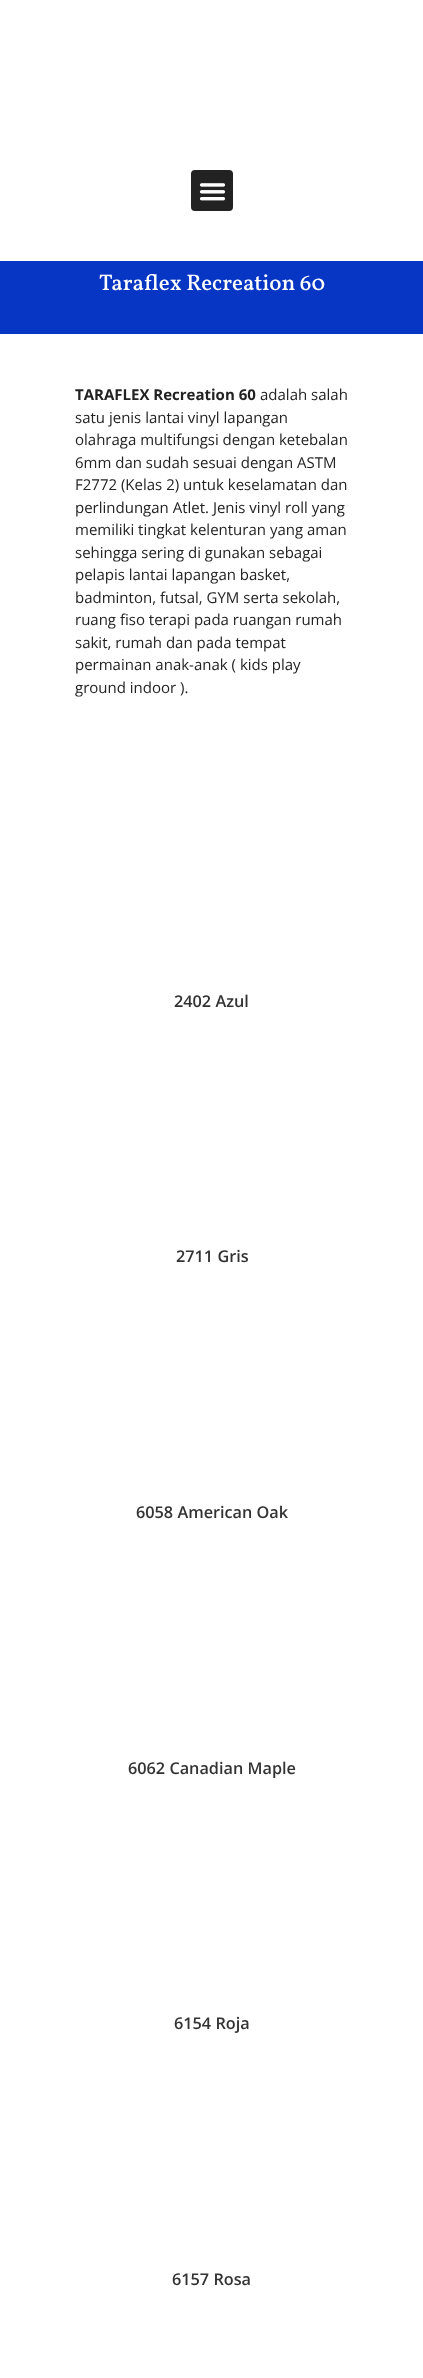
<svg xmlns="http://www.w3.org/2000/svg" width="423" height="2378">
<style>
.a{font:500 22.5px Vollkorn;fill:#fff}
.b{font:bold 15px Open Sans;fill:#222}
.c{font:15px Open Sans;fill:#222}
.d{font:600 16.25px Open Sans;fill:#333}
</style>
<rect width="100%" height="100%" fill="#fff"/>
<rect fill="#222" x="191" y="170" width="42" height="41" rx="4"/>
<image href="1.png" x="199" y="183" width="27" height="18"/>
<path fill="#0636c3" d="M0 261h423v73H0z"/>
<text class="a" x="99" y="290">Taraflex Recreation 60</text>
<text class="b" x="75" y="400">TARAFLEX Recreation 60</text>
<text class="c" x="260" y="400">adalah salah</text>
<text class="c" x="75" y="423">satu jenis lantai vinyl lapangan</text>
<text class="c" x="75" y="445">olahraga multifungsi dengan ketebalan</text>
<text class="c" x="75" y="468">6mm dan sudah sesuai dengan ASTM</text>
<text class="c" x="75" y="490">F2772 (Kelas 2) untuk keselamatan dan</text>
<text class="c" x="75" y="513">perlindungan Atlet. Jenis vinyl roll yang</text>
<text class="c" x="75" y="535">memiliki tingkat kelenturan yang aman</text>
<text class="c" x="75" y="558">sehingga sering di gunakan sebagai</text>
<text class="c" x="75" y="580">pelapis lantai lapangan basket,</text>
<text class="c" x="75" y="603">badminton, futsal, GYM serta sekolah,</text>
<text class="c" x="75" y="625">ruang fiso terapi pada ruangan rumah</text>
<text class="c" x="75" y="648">sakit, rumah dan pada tempat</text>
<text class="c" x="75" y="670">permainan anak-anak ( kids play</text>
<text class="c" x="75" y="693">ground indoor ).</text>
<text class="d" x="174" y="1007">2402 Azul</text>
<text class="d" x="176" y="1262">2711 Gris</text>
<text class="d" x="136" y="1518">6058 American Oak</text>
<text class="d" x="128" y="1774">6062 Canadian Maple</text>
<text class="d" x="174" y="2029">6154 Roja</text>
<text class="d" x="172" y="2285">6157 Rosa</text>
</svg>
